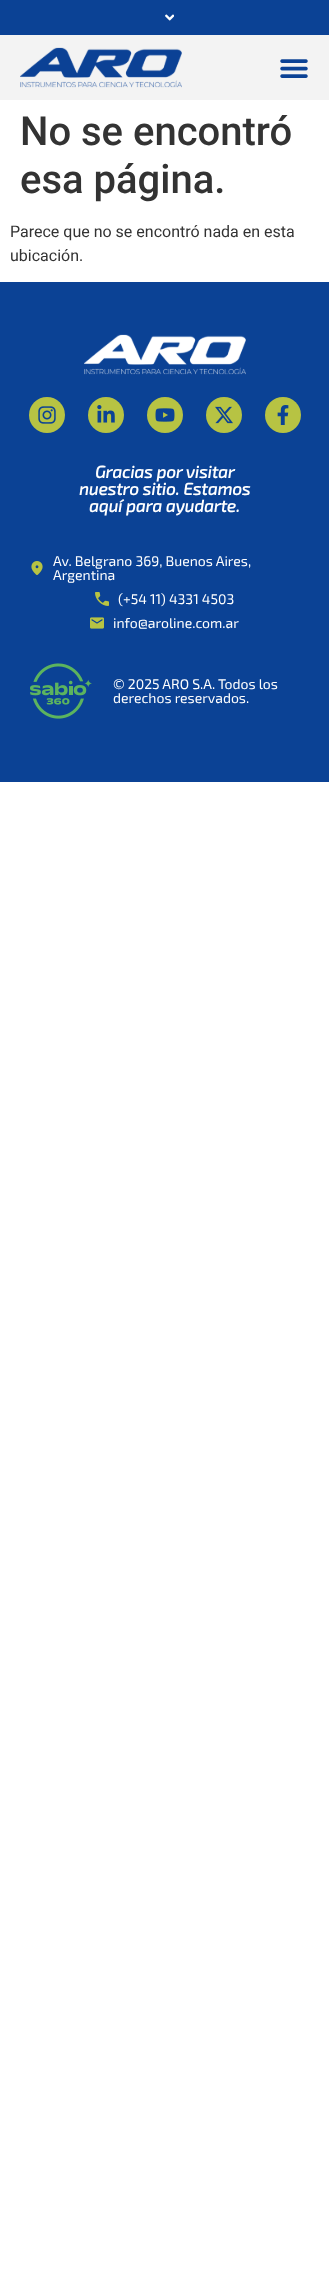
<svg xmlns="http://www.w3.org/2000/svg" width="329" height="2286">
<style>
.a{font:500 40px Roboto;fill:#333}
.b{font:16px Roboto;fill:#333}
.c{font:italic bold 17px 'Exo 2';fill:#fff}
.d{font:14px 'Exo 2';fill:#fff}
</style>
<rect width="100%" height="100%" fill="#fff"/>
<path fill="#0b4295" d="M0 0h329v35H0z"/>
<image href="1.png" x="165" y="14" width="9" height="7"/>
<path fill="#f3f3f3" d="M0 35h329v65H0z"/>
<image href="2.png" x="20" y="47" width="162" height="41"/>
<image href="3.png" x="280" y="59" width="28" height="19"/>
<path fill="#0b4295" d="M0 282h329v500H0z"/>
<image href="4.png" x="84" y="334" width="162" height="41"/>
<circle fill="#b7c343" cx="47" cy="415" r="18"/>
<image href="5.png" x="38" y="406" width="18" height="18"/>
<circle fill="#b7c343" cx="106" cy="415" r="18"/>
<image href="6.png" x="97" y="405" width="18" height="18"/>
<circle fill="#b7c343" cx="165" cy="415" r="18"/>
<image href="7.png" x="155" y="408" width="20" height="14"/>
<circle fill="#b7c343" cx="224" cy="415" r="18"/>
<image href="8.png" x="215" y="406" width="18" height="18"/>
<circle fill="#b7c343" cx="283" cy="415" r="18"/>
<image href="9.png" x="277" y="405" width="12" height="20"/>
<image href="10.png" x="31" y="561" width="12" height="14"/>
<image href="11.png" x="95" y="592" width="14" height="14"/>
<image href="12.png" x="90" y="617" width="14" height="12"/>
<image href="13.png" x="30" y="663" width="62" height="56"/>
<text class="a" x="20" y="145">No se encontró</text>
<text class="a" x="20" y="193">esa página.</text>
<text class="b" x="10" y="237">Parece que no se encontró nada en esta</text>
<text class="b" x="10" y="261">ubicación.</text>
<text class="c" x="95" y="478">Gracias por visitar</text>
<text class="c" x="79" y="495">nuestro sitio. Estamos</text>
<text class="c" x="89" y="512">aquí para ayudarte.</text>
<text class="d" x="53" y="566">Av. Belgrano 369, Buenos Aires,</text>
<text class="d" x="53" y="580">Argentina</text>
<text class="d" x="118" y="604">(+54 11) 4331 4503</text>
<text class="d" x="113" y="628">info@aroline.com.ar</text>
<text class="d" x="113" y="689">© 2025 ARO S.A. Todos los</text>
<text class="d" x="113" y="703">derechos reservados.</text>
</svg>
